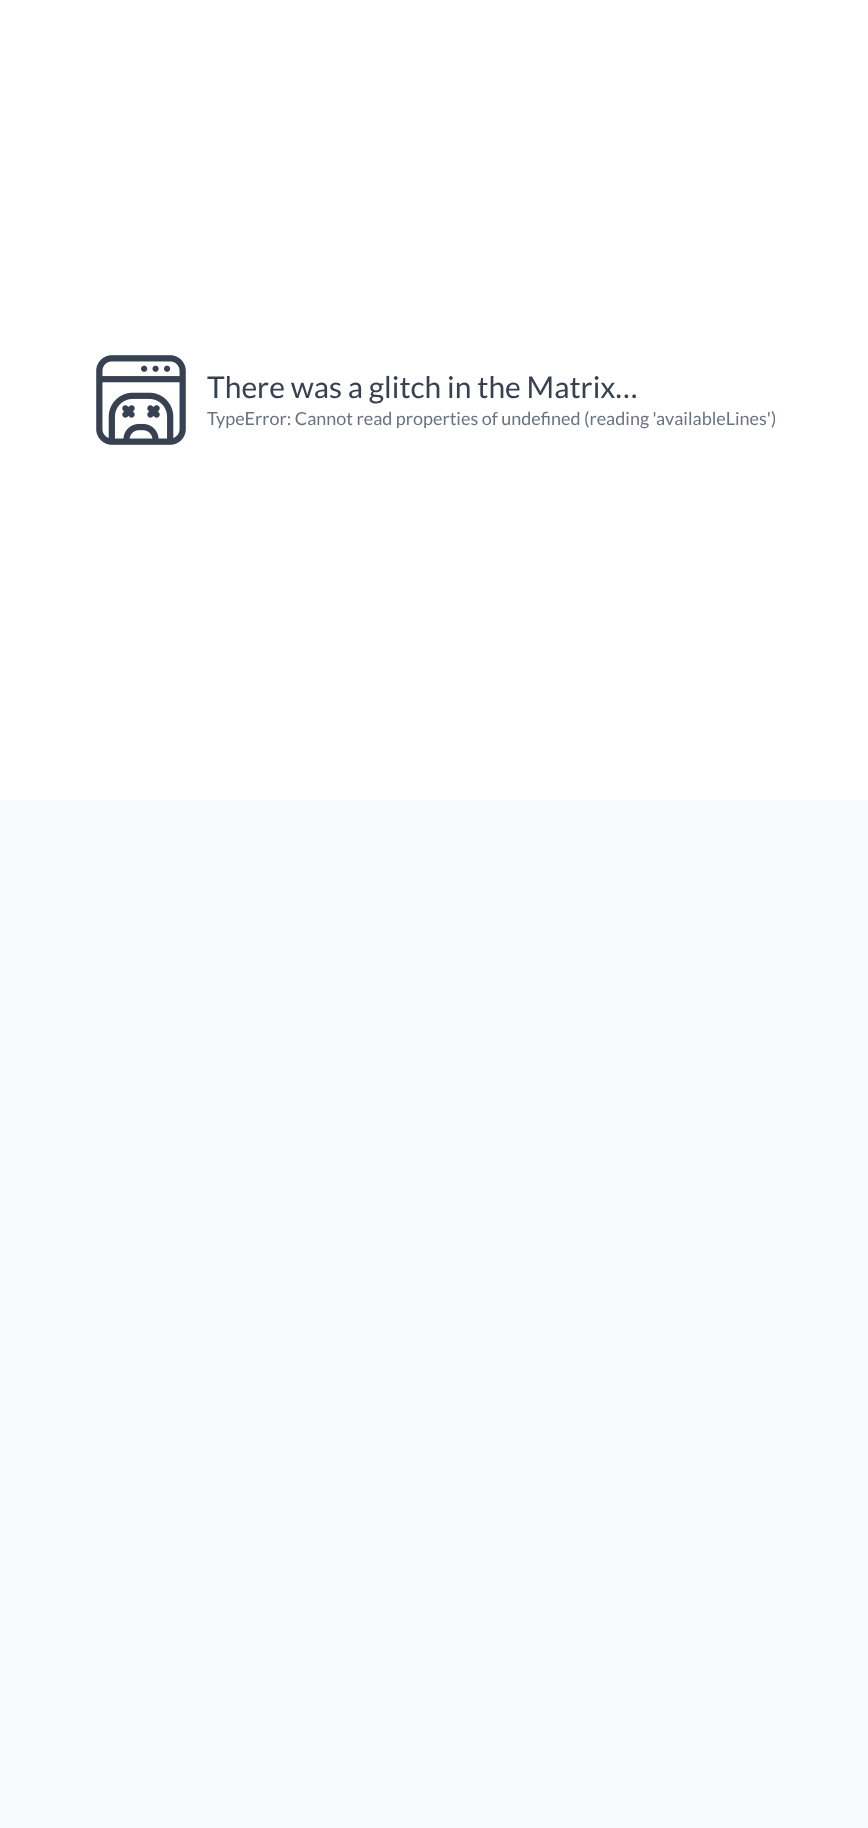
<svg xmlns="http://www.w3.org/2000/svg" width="868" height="1828">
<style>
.a{font:30px Lato;fill:#374151}
.b{font:18px Lato;fill:#6b7280}
</style>
<rect width="100%" height="100%" fill="#f9fafb"/>
<path fill="#fff" d="M0 0h868v800H0z"/>
<image href="1.png" x="96" y="355" width="90" height="90"/>
<text class="a" x="207" y="398">There was a glitch in the Matrix…</text>
<text class="b" x="207" y="425">TypeError: Cannot read properties of undefined (reading 'availableLines')</text>
</svg>
